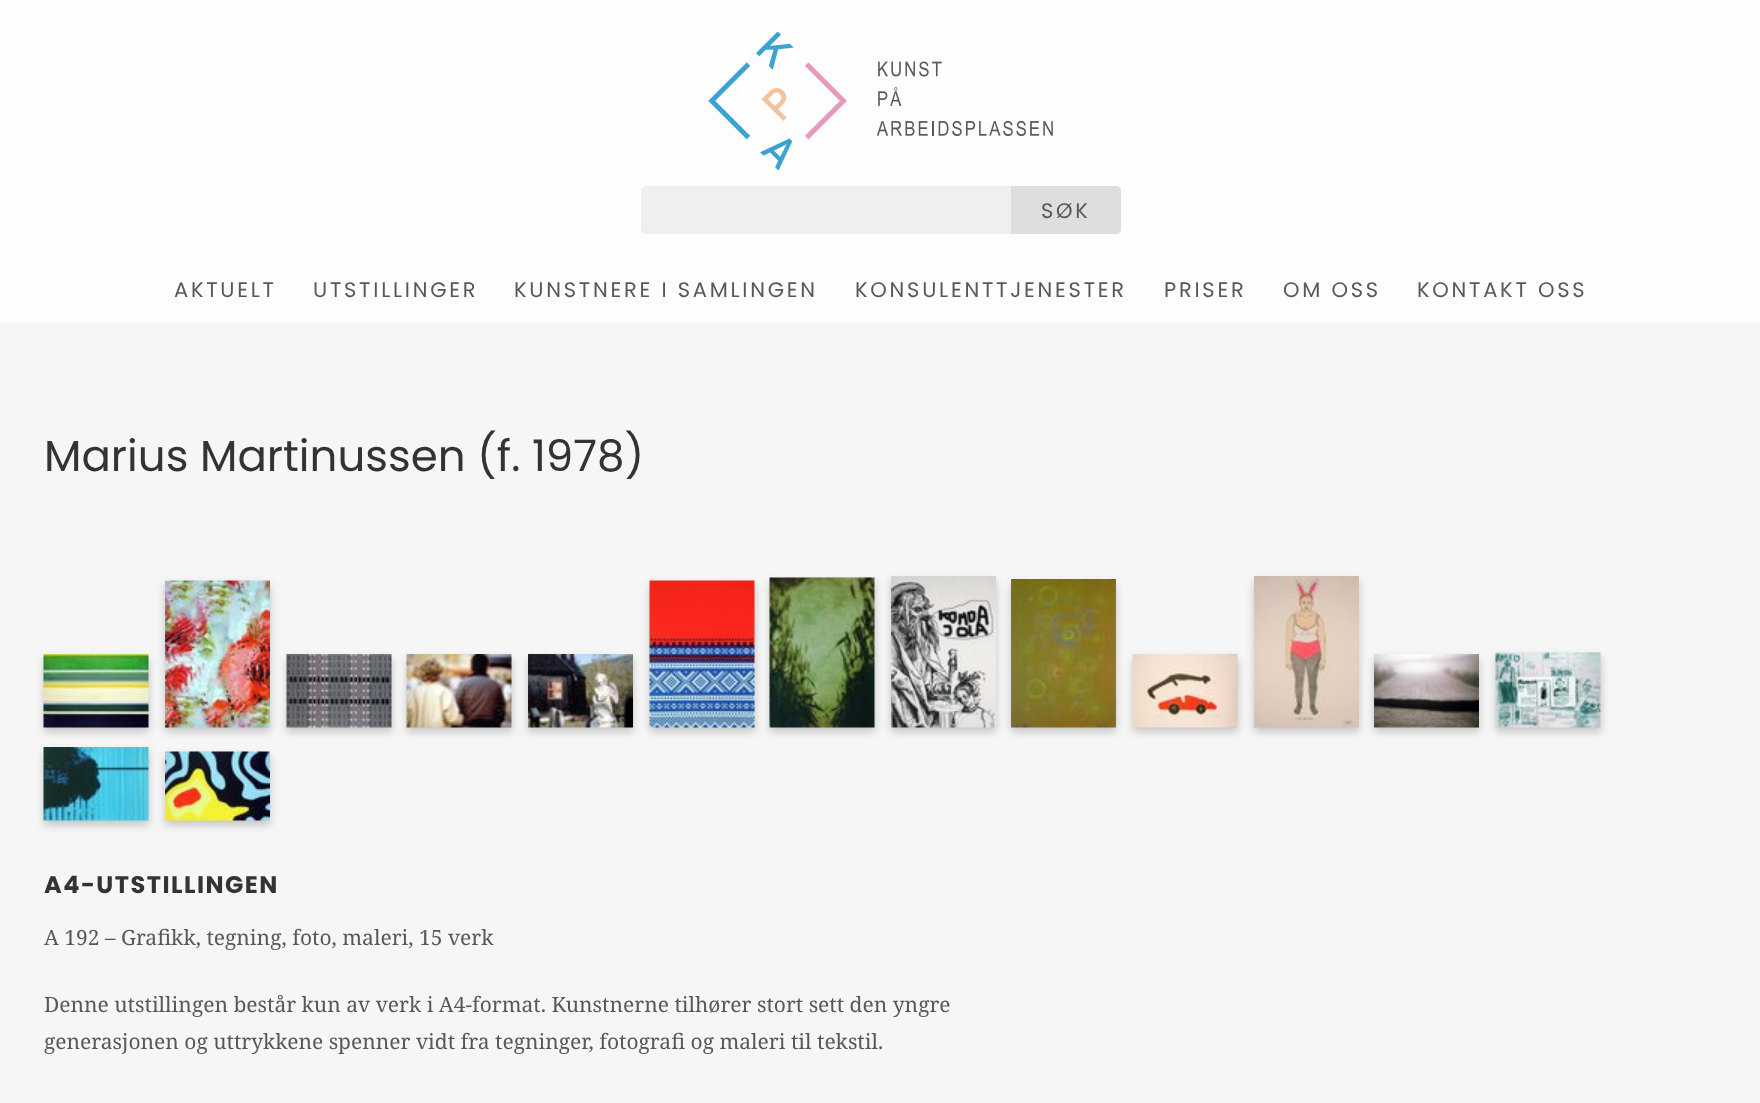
<svg xmlns="http://www.w3.org/2000/svg" width="1760" height="1103">
<style>
.a{font:21px Poppins;letter-spacing:2.75px;fill:#585858}
.b{font:43.5px Poppins;fill:#333}
.c{font:bold 24px Poppins;letter-spacing:1.5px;fill:#333}
.d{font:21px Noto Serif;fill:#585858}
</style>
<rect width="100%" height="100%" fill="#f6f6f6"/>
<path fill="#fdfdfd" d="M0 0h1760v323H0z"/>
<image href="1.png" x="708" y="32" width="345" height="138"/>
<path fill="#efefef" d="M646 186h365v48h-365c-3 0-5-2-5-5v-38c0-3 2-5 5-5z"/>
<path fill="#dedede" d="M1011 186h105c3 0 5 2 5 5v38c0 3-2 5-5 5h-105z"/>
<path fill="#00000033" filter="blur(4px)" d="M44 659h105v73H44z"/>
<image href="2.png" x="43" y="654" width="106" height="74"/>
<path fill="#00000033" filter="blur(4px)" d="M165 585h105v147H165z"/>
<image href="3.png" x="165" y="580" width="105" height="148"/>
<path fill="#00000033" filter="blur(4px)" d="M287 659h105v73H287z"/>
<image href="4.png" x="286" y="654" width="106" height="74"/>
<path fill="#00000033" filter="blur(4px)" d="M407 659h105v73H407z"/>
<image href="5.png" x="406" y="654" width="106" height="74"/>
<path fill="#00000033" filter="blur(4px)" d="M528 659h105v73H528z"/>
<image href="6.png" x="528" y="654" width="105" height="74"/>
<path fill="#00000033" filter="blur(4px)" d="M650 585h105v147H650z"/>
<image href="7.png" x="649" y="580" width="106" height="148"/>
<path fill="#00000033" filter="blur(4px)" d="M770 582h105v150H770z"/>
<image href="8.png" x="769" y="577" width="106" height="151"/>
<path fill="#00000033" filter="blur(4px)" d="M891 581h105v151H891z"/>
<image href="9.png" x="891" y="576" width="105" height="152"/>
<path fill="#00000033" filter="blur(4px)" d="M1011 584h105v148H1011z"/>
<image href="10.png" x="1011" y="579" width="105" height="149"/>
<path fill="#00000033" filter="blur(4px)" d="M1133 659h105v73H1133z"/>
<image href="11.png" x="1132" y="654" width="106" height="74"/>
<path fill="#00000033" filter="blur(4px)" d="M1254 581h105v151H1254z"/>
<image href="12.png" x="1254" y="576" width="105" height="152"/>
<path fill="#00000033" filter="blur(4px)" d="M1374 659h105v73H1374z"/>
<image href="13.png" x="1374" y="654" width="105" height="74"/>
<path fill="#00000033" filter="blur(4px)" d="M1496 657h105v75H1496z"/>
<image href="14.png" x="1495" y="652" width="106" height="76"/>
<path fill="#00000033" filter="blur(4px)" d="M44 752h105v73H44z"/>
<image href="15.png" x="43" y="747" width="106" height="74"/>
<path fill="#00000033" filter="blur(4px)" d="M165 756h105v69H165z"/>
<image href="16.png" x="165" y="751" width="105" height="70"/>
<text class="a" x="1041" y="218">SØK</text>
<text class="a" x="174" y="297">AKTUELT</text>
<text class="a" x="313" y="297">UTSTILLINGER</text>
<text class="a" x="514" y="297">KUNSTNERE I SAMLINGEN</text>
<text class="a" x="855" y="297">KONSULENTTJENESTER</text>
<text class="a" x="1164" y="297">PRISER</text>
<text class="a" x="1283" y="297">OM OSS</text>
<text class="a" x="1417" y="297">KONTAKT OSS</text>
<text class="b" x="44" y="471">Marius Martinussen (f. 1978)</text>
<text class="c" x="44" y="893">A4-UTSTILLINGEN</text>
<text class="d" x="44" y="945">A 192 – Grafikk, tegning, foto, maleri, 15 verk</text>
<text class="d" x="44" y="1012">Denne utstillingen består kun av verk i A4-format. Kunstnerne tilhører stort sett den yngre</text>
<text class="d" x="44" y="1049">generasjonen og uttrykkene spenner vidt fra tegninger, fotografi og maleri til tekstil.</text>
</svg>
